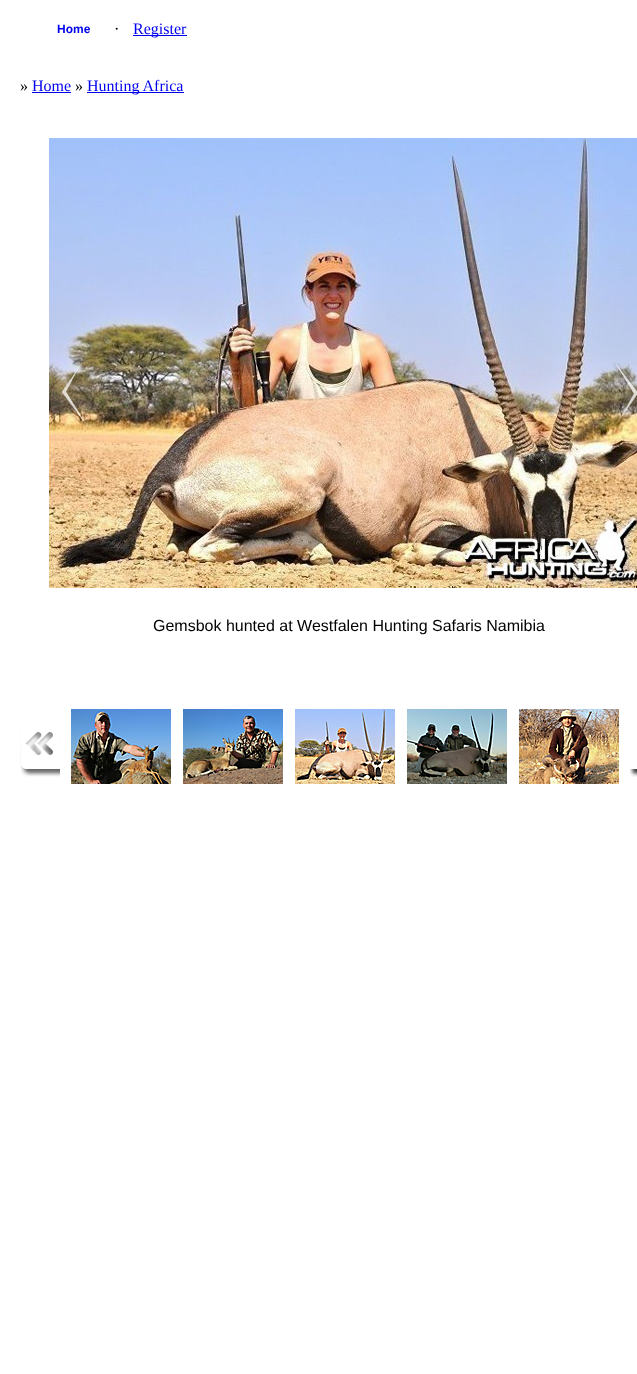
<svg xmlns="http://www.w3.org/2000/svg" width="637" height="1374">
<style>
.a{font:bold 12px Liberation Sans;fill:#00e}
.b{font:16px Liberation Serif;fill:#000}
.c{font:16px Liberation Serif;fill:#00e}
.d{font:16px Liberation Sans;fill:#000}
</style>
<rect width="100%" height="100%" fill="#fff"/>
<path fill="#00e" d="M133 35h54v1H133z"/>
<path fill="#00e" d="M32 92h39v1H32z"/>
<path fill="#00e" d="M87 92h97v1H87z"/>
<image href="1.png" x="49" y="138" width="588" height="450"/>
<image href="2.png" x="62" y="363" width="24" height="61"/>
<image href="3.png" x="613" y="363" width="24" height="59"/>
<image href="4.png" x="20" y="732" width="40" height="45"/>
<image href="5.png" x="71" y="709" width="100" height="75"/>
<image href="6.png" x="183" y="709" width="100" height="75"/>
<image href="7.png" x="295" y="709" width="100" height="75"/>
<image href="8.png" x="407" y="709" width="100" height="75"/>
<image href="9.png" x="519" y="709" width="100" height="75"/>
<image href="10.png" x="630" y="769" width="7" height="8"/>
<text class="a" x="57" y="33">Home</text>
<text class="b" x="114" y="34">·</text>
<text class="c" x="133" y="34">Register</text>
<text class="b" x="20" y="91">»</text>
<text class="c" x="32" y="91">Home</text>
<text class="b" x="75" y="91">»</text>
<text class="c" x="87" y="91">Hunting Africa</text>
<text class="d" x="153" y="631">Gemsbok hunted at Westfalen Hunting Safaris Namibia</text>
</svg>
